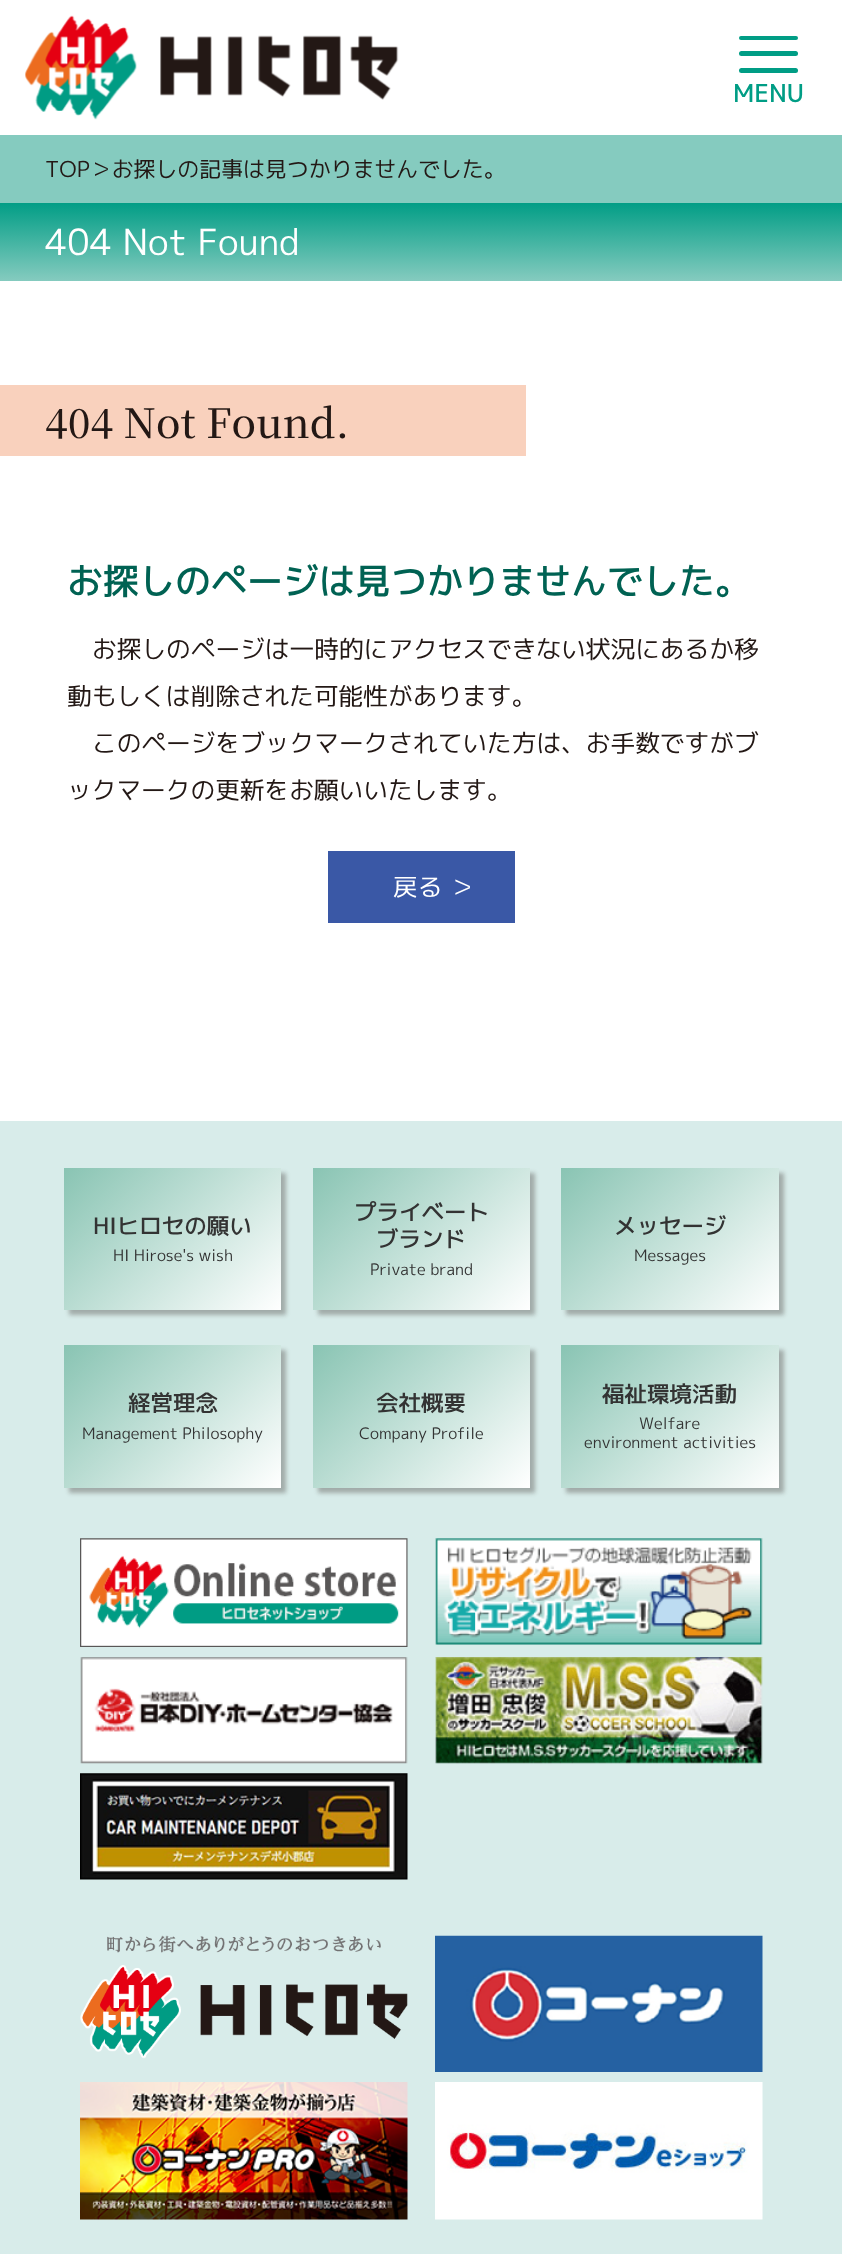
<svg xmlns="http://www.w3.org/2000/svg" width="842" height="2254">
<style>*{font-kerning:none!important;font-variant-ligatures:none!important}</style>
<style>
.a{font:500 24.7px 'M PLUS 1p';fill:#009d85}
.b{font:21.9px 'M PLUS 1p';fill:#231815}
.c{font:36px 'M PLUS 1p';fill:#fff}
.d{font:200 40.5px Noto Serif JP;fill:#231815}
.e{font:500 36px 'M PLUS 1p';fill:#006253}
.f{font:24.7px 'M PLUS 1p';fill:#231815}
.g{font:24.7px 'M PLUS 1p';fill:#fff}
.h{font:500 22.5px 'M PLUS 1p';fill:#333}
.i{font:15.75px 'M PLUS 1p';fill:#333}
</style>
<defs>
<linearGradient id="g1" gradientUnits="userSpaceOnUse" x1="421" y1="202" x2="421" y2="281"><stop offset="0" stop-color="#009d85"/><stop offset="1" stop-color="#85cbbf"/></linearGradient>
<linearGradient id="g2" gradientUnits="userSpaceOnUse" x1="83" y1="1149" x2="263" y2="1329"><stop offset="0" stop-color="#89c4b3"/><stop offset="1" stop-color="#fff"/></linearGradient>
<linearGradient id="g3" gradientUnits="userSpaceOnUse" x1="331" y1="1149" x2="511" y2="1329"><stop offset="0" stop-color="#89c4b3"/><stop offset="1" stop-color="#fff"/></linearGradient>
<linearGradient id="g4" gradientUnits="userSpaceOnUse" x1="580" y1="1149" x2="760" y2="1329"><stop offset="0" stop-color="#89c4b3"/><stop offset="1" stop-color="#fff"/></linearGradient>
<linearGradient id="g5" gradientUnits="userSpaceOnUse" x1="83" y1="1326" x2="263" y2="1506"><stop offset="0" stop-color="#89c4b3"/><stop offset="1" stop-color="#fff"/></linearGradient>
<linearGradient id="g6" gradientUnits="userSpaceOnUse" x1="331" y1="1326" x2="511" y2="1506"><stop offset="0" stop-color="#89c4b3"/><stop offset="1" stop-color="#fff"/></linearGradient>
<linearGradient id="g7" gradientUnits="userSpaceOnUse" x1="580" y1="1326" x2="760" y2="1506"><stop offset="0" stop-color="#89c4b3"/><stop offset="1" stop-color="#fff"/></linearGradient>
</defs>
<rect width="100%" height="100%" fill="#fff"/>
<image href="1.png" x="25" y="15" width="374" height="105"/>
<rect fill="#009d85" x="739" y="36" width="59" height="4" rx="2"/>
<rect fill="#009d85" x="739" y="51" width="59" height="5" rx="2.5"/>
<rect fill="#009d85" x="739" y="68" width="59" height="5" rx="2.5"/>
<path fill="#85cbbf" d="M0 135h842v68H0z"/>
<path fill="url(#g1)" d="M0 203h842v78H0z"/>
<path fill="#f9d1bd" d="M0 385h526v71H0z"/>
<path fill="#3a58a6" d="M328 851h187v72H328z"/>
<path fill="#d8ecea" d="M0 1121h842v1133H0z"/>
<path fill="#2318154d" filter="blur(2px)" d="M69 1173h217v142H69z"/>
<path fill="url(#g2)" d="M64 1168h217v142H64z"/>
<path fill="#2318154d" filter="blur(2px)" d="M318 1173h217v142H318z"/>
<path fill="url(#g3)" d="M313 1168h217v142H313z"/>
<path fill="#2318154d" filter="blur(2px)" d="M566 1173h218v142H566z"/>
<path fill="url(#g4)" d="M561 1168h218v142H561z"/>
<path fill="#2318154d" filter="blur(2px)" d="M69 1350h217v143H69z"/>
<path fill="url(#g5)" d="M64 1345h217v143H64z"/>
<path fill="#2318154d" filter="blur(2px)" d="M318 1350h217v143H318z"/>
<path fill="url(#g6)" d="M313 1345h217v143H313z"/>
<path fill="#2318154d" filter="blur(2px)" d="M566 1350h218v143H566z"/>
<path fill="url(#g7)" d="M561 1345h218v143H561z"/>
<image href="2.png" x="80" y="1538" width="328" height="109"/>
<image href="3.png" x="435" y="1538" width="328" height="107"/>
<image href="4.png" x="80" y="1657" width="328" height="107"/>
<image href="5.png" x="435" y="1657" width="328" height="107"/>
<image href="6.png" x="80" y="1773" width="328" height="107"/>
<image href="7.png" x="80" y="1935" width="328" height="124"/>
<image href="8.png" x="435" y="1935" width="328" height="137"/>
<image href="9.png" x="80" y="2082" width="328" height="138"/>
<image href="10.png" x="435" y="2082" width="328" height="138"/>
<text class="a" x="733" y="102">MENU</text>
<text class="b" x="45" y="177">TOP＞お探しの記事は見つかりませんでした。</text>
<text class="c" x="45" y="255">404 Not Found</text>
<text class="d" x="45" y="438">404 Not Found.</text>
<text class="e" x="67" y="594">お探しのページは見つかりませんでした。</text>
<text class="f" x="92" y="658">お探しのページは一時的にアクセスできない状況にあるか移</text>
<text class="f" x="67" y="705">動もしくは削除された可能性があります。</text>
<text class="f" x="92" y="752">このページをブックマークされていた方は、お手数ですがブ</text>
<text class="f" x="67" y="799">ックマークの更新をお願いいたします。</text>
<text class="g" x="393" y="896">戻る ＞</text>
<text class="h" x="93" y="1234">HIヒロセの願い</text>
<text class="i" x="113" y="1261">HI Hirose's wish</text>
<text class="h" x="354" y="1220">プライベート</text>
<text class="h" x="376" y="1247">ブランド</text>
<text class="i" x="370" y="1275">Private brand</text>
<text class="h" x="614" y="1234">メッセージ</text>
<text class="i" x="634" y="1261">Messages</text>
<text class="h" x="128" y="1411">経営理念</text>
<text class="i" x="82" y="1439">Management Philosophy</text>
<text class="h" x="376" y="1411">会社概要</text>
<text class="i" x="359" y="1439">Company Profile</text>
<text class="h" x="602" y="1402">福祉環境活動</text>
<text class="i" x="639" y="1429">Welfare</text>
<text class="i" x="584" y="1448">environment activities</text>
</svg>
